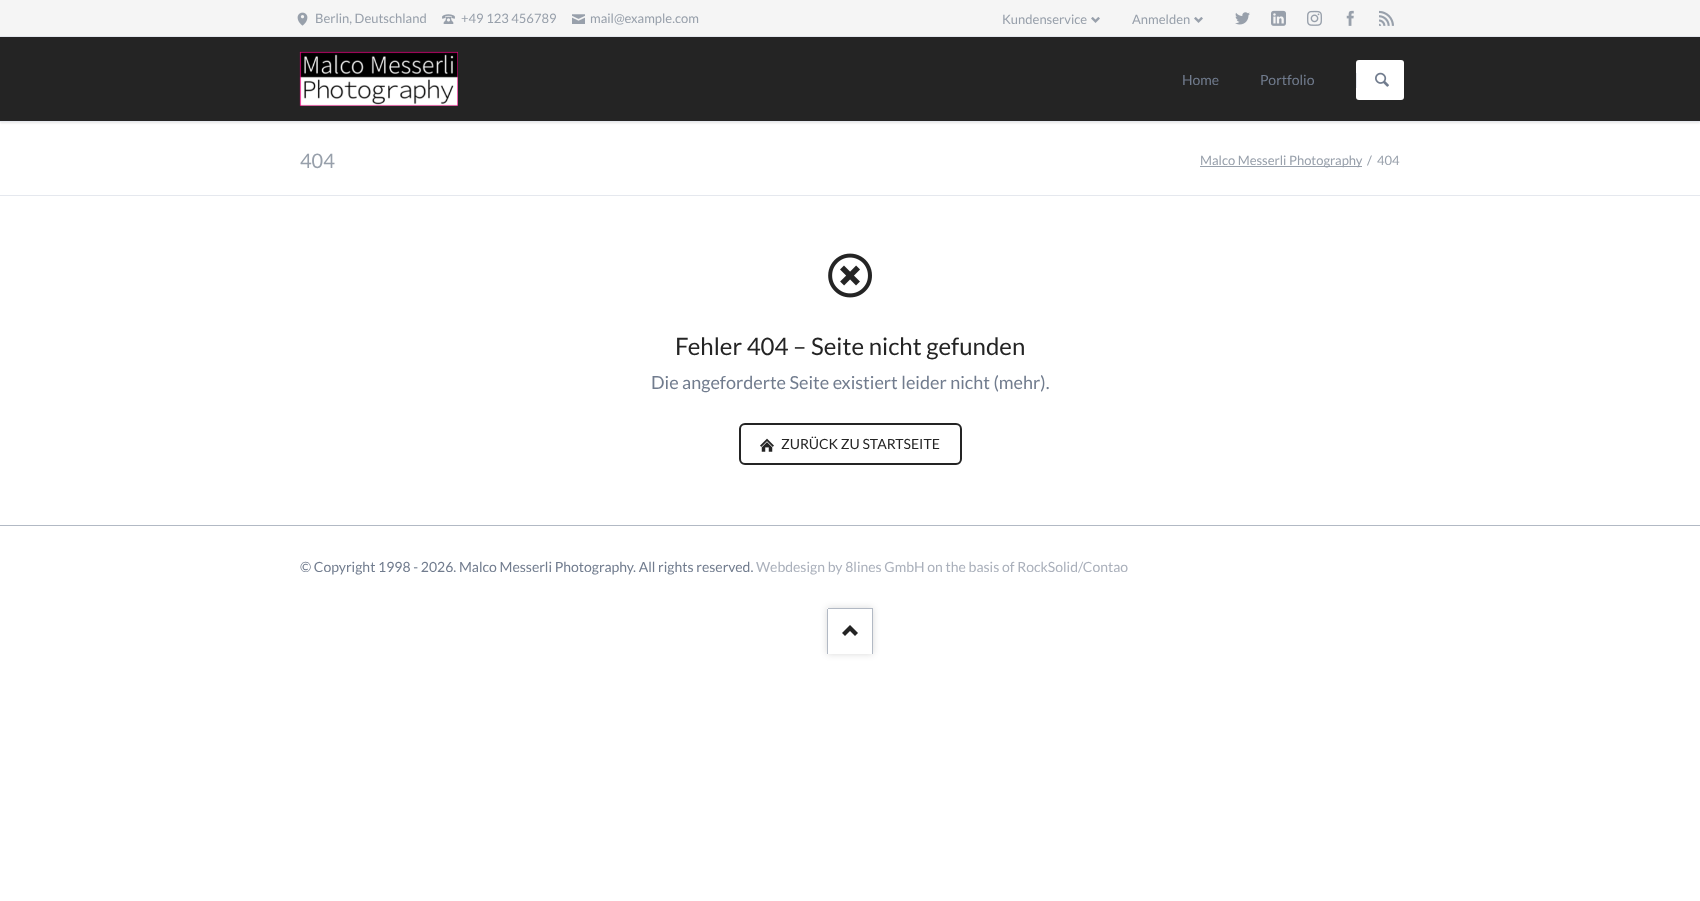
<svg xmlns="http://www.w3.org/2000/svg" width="1700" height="901">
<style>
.a{font:13px Lato;fill:#98a0ab}
.b{font:14px Lato;fill:#717c8e}
.c{font:20px Lato;fill:#98a0ab}
.d{font:24px Lato;fill:#242424}
.e{font:18px Lato;fill:#717c8e}
.f{font:14px Lato;fill:#242424}
.g{font:14px Lato;fill:#aab0bb}
</style>
<rect width="100%" height="100%" fill="#fff"/>
<path fill="#f5f5f5" d="M0 0h1700v36H0z"/>
<path fill="#e5e8ee" d="M0 36h1700v1H0z"/>
<image href="1.png" x="297" y="12" width="11" height="14"/>
<image href="2.png" x="442" y="14" width="13" height="10"/>
<image href="3.png" x="572" y="14" width="13" height="10"/>
<image href="4.png" x="1091" y="17" width="9" height="6"/>
<image href="4.png" x="1194" y="17" width="9" height="6"/>
<image href="5.png" x="1235" y="12" width="15" height="13"/>
<image href="6.png" x="1271" y="10" width="15" height="16"/>
<image href="7.png" x="1307" y="10" width="15" height="16"/>
<image href="8.png" x="1346" y="10" width="8" height="16"/>
<image href="9.png" x="1379" y="10" width="15" height="16"/>
<path fill="#0000001a" filter="blur(1px)" d="M0 38h1700v85H0z"/>
<path fill="#242424" d="M0 37h1700v84H0z"/>
<path fill="#e5e8ee" d="M0 121h1700v1H0z"/>
<image href="10.png" x="299" y="51" width="159" height="55"/>
<rect fill="#fff" x="1356" y="60" width="48" height="40" rx="3"/>
<path fill="#e5e8ee" d="M1356 73h1v15H1356z"/>
<image href="11.png" x="1375" y="72" width="14" height="15"/>
<path fill="#e5e8ee" d="M0 195h1700v1H0z"/>
<path fill="#98a0ab" d="M1200 166h162v1H1200z"/>
<image href="12.png" x="828" y="253" width="44" height="45"/>
<rect fill="none" stroke="#242424" stroke-width="2" x="740" y="424" width="221" height="40" rx="5"/>
<image href="13.png" x="760" y="438" width="14" height="14"/>
<path fill="#b2b9c4" d="M0 525h1700v1H0z"/>
<rect fill="#00000026" filter="blur(3.5px)" x="827" y="608" width="46" height="46" rx="1"/>
<path fill="#fff" d="M828 608h44c.5 0 1 .5 1 1v45h-46v-45c0-.5 .5-1 1-1z"/>
<path fill="#b2b9c4" d="M828 608h45v1H828z"/>
<path fill="#b2b9c4" d="M872 609h1v45H872z"/>
<path fill="#b2b9c4" d="M827 609h1v45H827z"/>
<image href="14.png" x="842" y="625" width="16" height="11"/>
<text class="a" x="315" y="23">Berlin, Deutschland</text>
<text class="a" x="461" y="23">+49 123 456789</text>
<text class="a" x="590" y="23">mail@example.com</text>
<text class="a" x="1002" y="24">Kundenservice</text>
<text class="a" x="1132" y="24">Anmelden</text>
<text class="b" x="1182" y="85">Home</text>
<text class="b" x="1260" y="85">Portfolio</text>
<text class="c" x="300" y="168">404</text>
<text class="a" x="1200" y="165">Malco Messerli Photography</text>
<text class="a" x="1367" y="165">/</text>
<text class="a" x="1377" y="165">404</text>
<text class="d" x="675" y="355">Fehler 404 – Seite nicht gefunden</text>
<text class="e" x="651" y="389">Die angeforderte Seite existiert leider nicht (mehr).</text>
<text class="f" x="781" y="449">ZURÜCK ZU STARTSEITE</text>
<text class="b" x="300" y="572">© Copyright 1998 - 2026. Malco Messerli Photography. All rights reserved.</text>
<text class="g" x="756" y="572">Webdesign by 8lines GmbH on the basis of RockSolid/Contao</text>
</svg>
